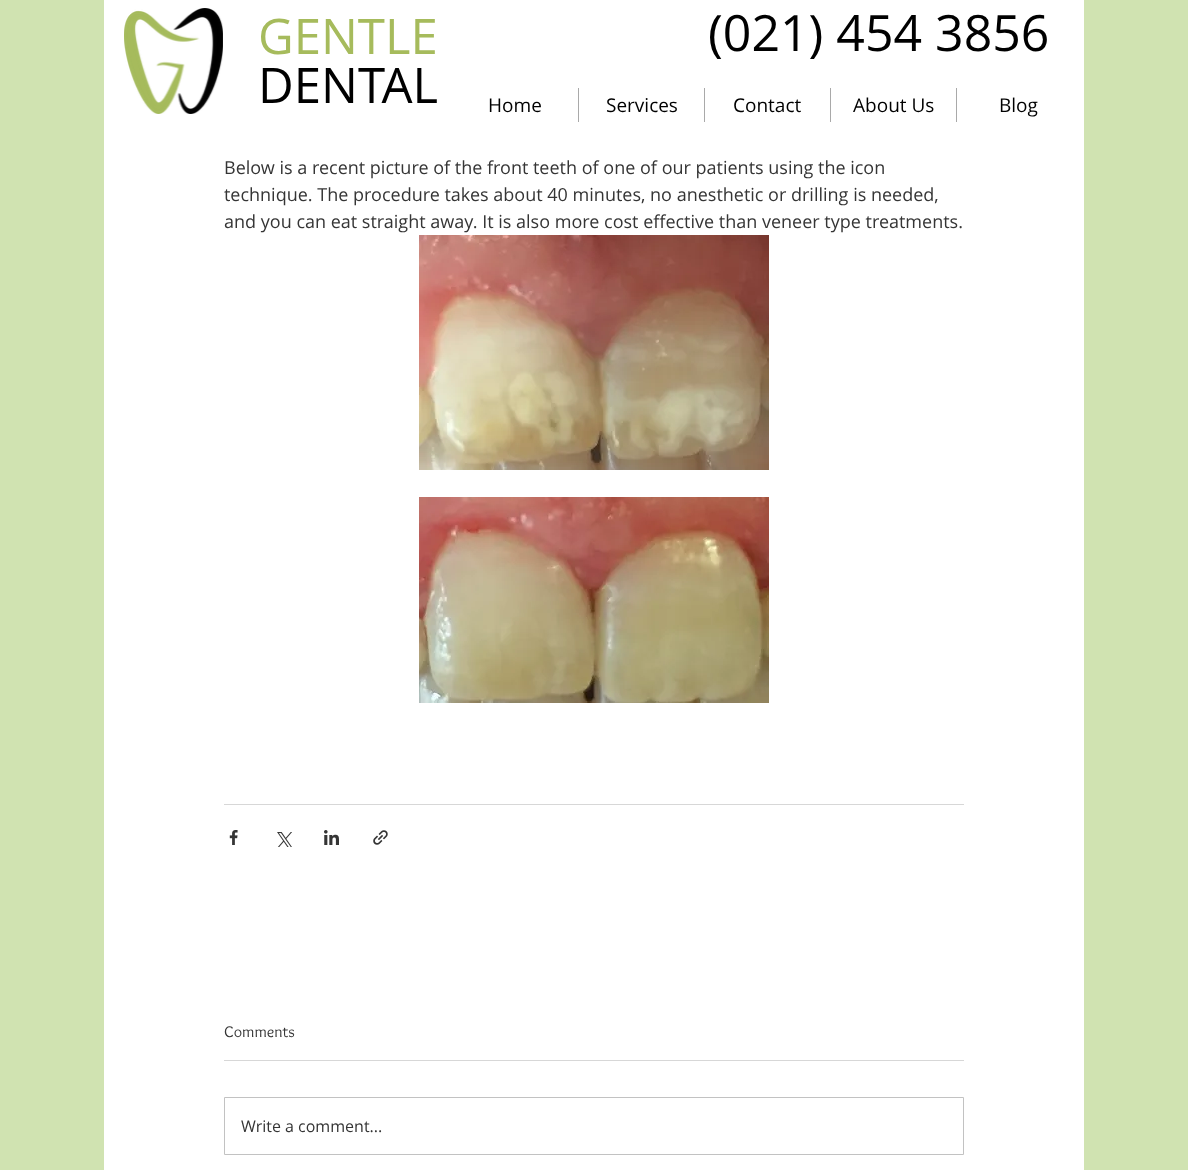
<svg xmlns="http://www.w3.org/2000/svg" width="1188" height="1170">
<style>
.a{font:49px Open Sans;fill:#a6bb5c}
.b{font:49px Open Sans;fill:#000}
.c{font:50px Open Sans;fill:#000}
.d{font:19px Open Sans;fill:#000}
.e{font:18px Open Sans;fill:#353535}
.f{font:16px Overlock;fill:#353535}
.g{font:16px Open Sans;fill:#353535}
</style>
<rect width="100%" height="100%" fill="#d0e3b1"/>
<path fill="#fff" d="M104 0h980v1170H104z"/>
<image href="1.png" x="124" y="8" width="99" height="106"/>
<path fill="#a9a9a9" d="M578 88h1v34H578z"/>
<path fill="#a9a9a9" d="M704 88h1v34H704z"/>
<path fill="#a9a9a9" d="M830 88h1v34H830z"/>
<path fill="#a9a9a9" d="M956 88h1v34H956z"/>
<image href="2.png" x="419" y="235" width="350" height="235"/>
<image href="3.png" x="419" y="497" width="350" height="206"/>
<path fill="#d7d7d7" d="M224 804h740v1H224z"/>
<image href="4.png" x="229" y="830" width="9" height="15"/>
<image href="5.png" x="277" y="832" width="15" height="15"/>
<image href="6.png" x="324" y="830" width="15" height="15"/>
<image href="7.png" x="373" y="830" width="15" height="15"/>
<path fill="#d7d7d7" d="M224 1060h740v1H224z"/>
<path fill="none" stroke="#c2c2c2" d="M224.5 1097.5h739v57H224.5z"/>
<text class="a" x="258" y="54">GENTLE</text>
<text class="b" x="258" y="103">DENTAL</text>
<text class="c" x="708" y="51">(021) 454 3856</text>
<text class="d" x="488" y="112">Home</text>
<text class="d" x="606" y="112">Services</text>
<text class="d" x="733" y="112">Contact</text>
<text class="d" x="853" y="112">About Us</text>
<text class="d" x="999" y="112">Blog</text>
<text class="e" x="224" y="174">Below is a recent picture of the front teeth of one of our patients using the icon</text>
<text class="e" x="224" y="201">technique. The procedure takes about 40 minutes, no anesthetic or drilling is needed,</text>
<text class="e" x="224" y="228">and you can eat straight away. It is also more cost effective than veneer type treatments.</text>
<text class="f" x="224" y="1037">Comments</text>
<text class="g" x="241" y="1132">Write a comment...</text>
</svg>
